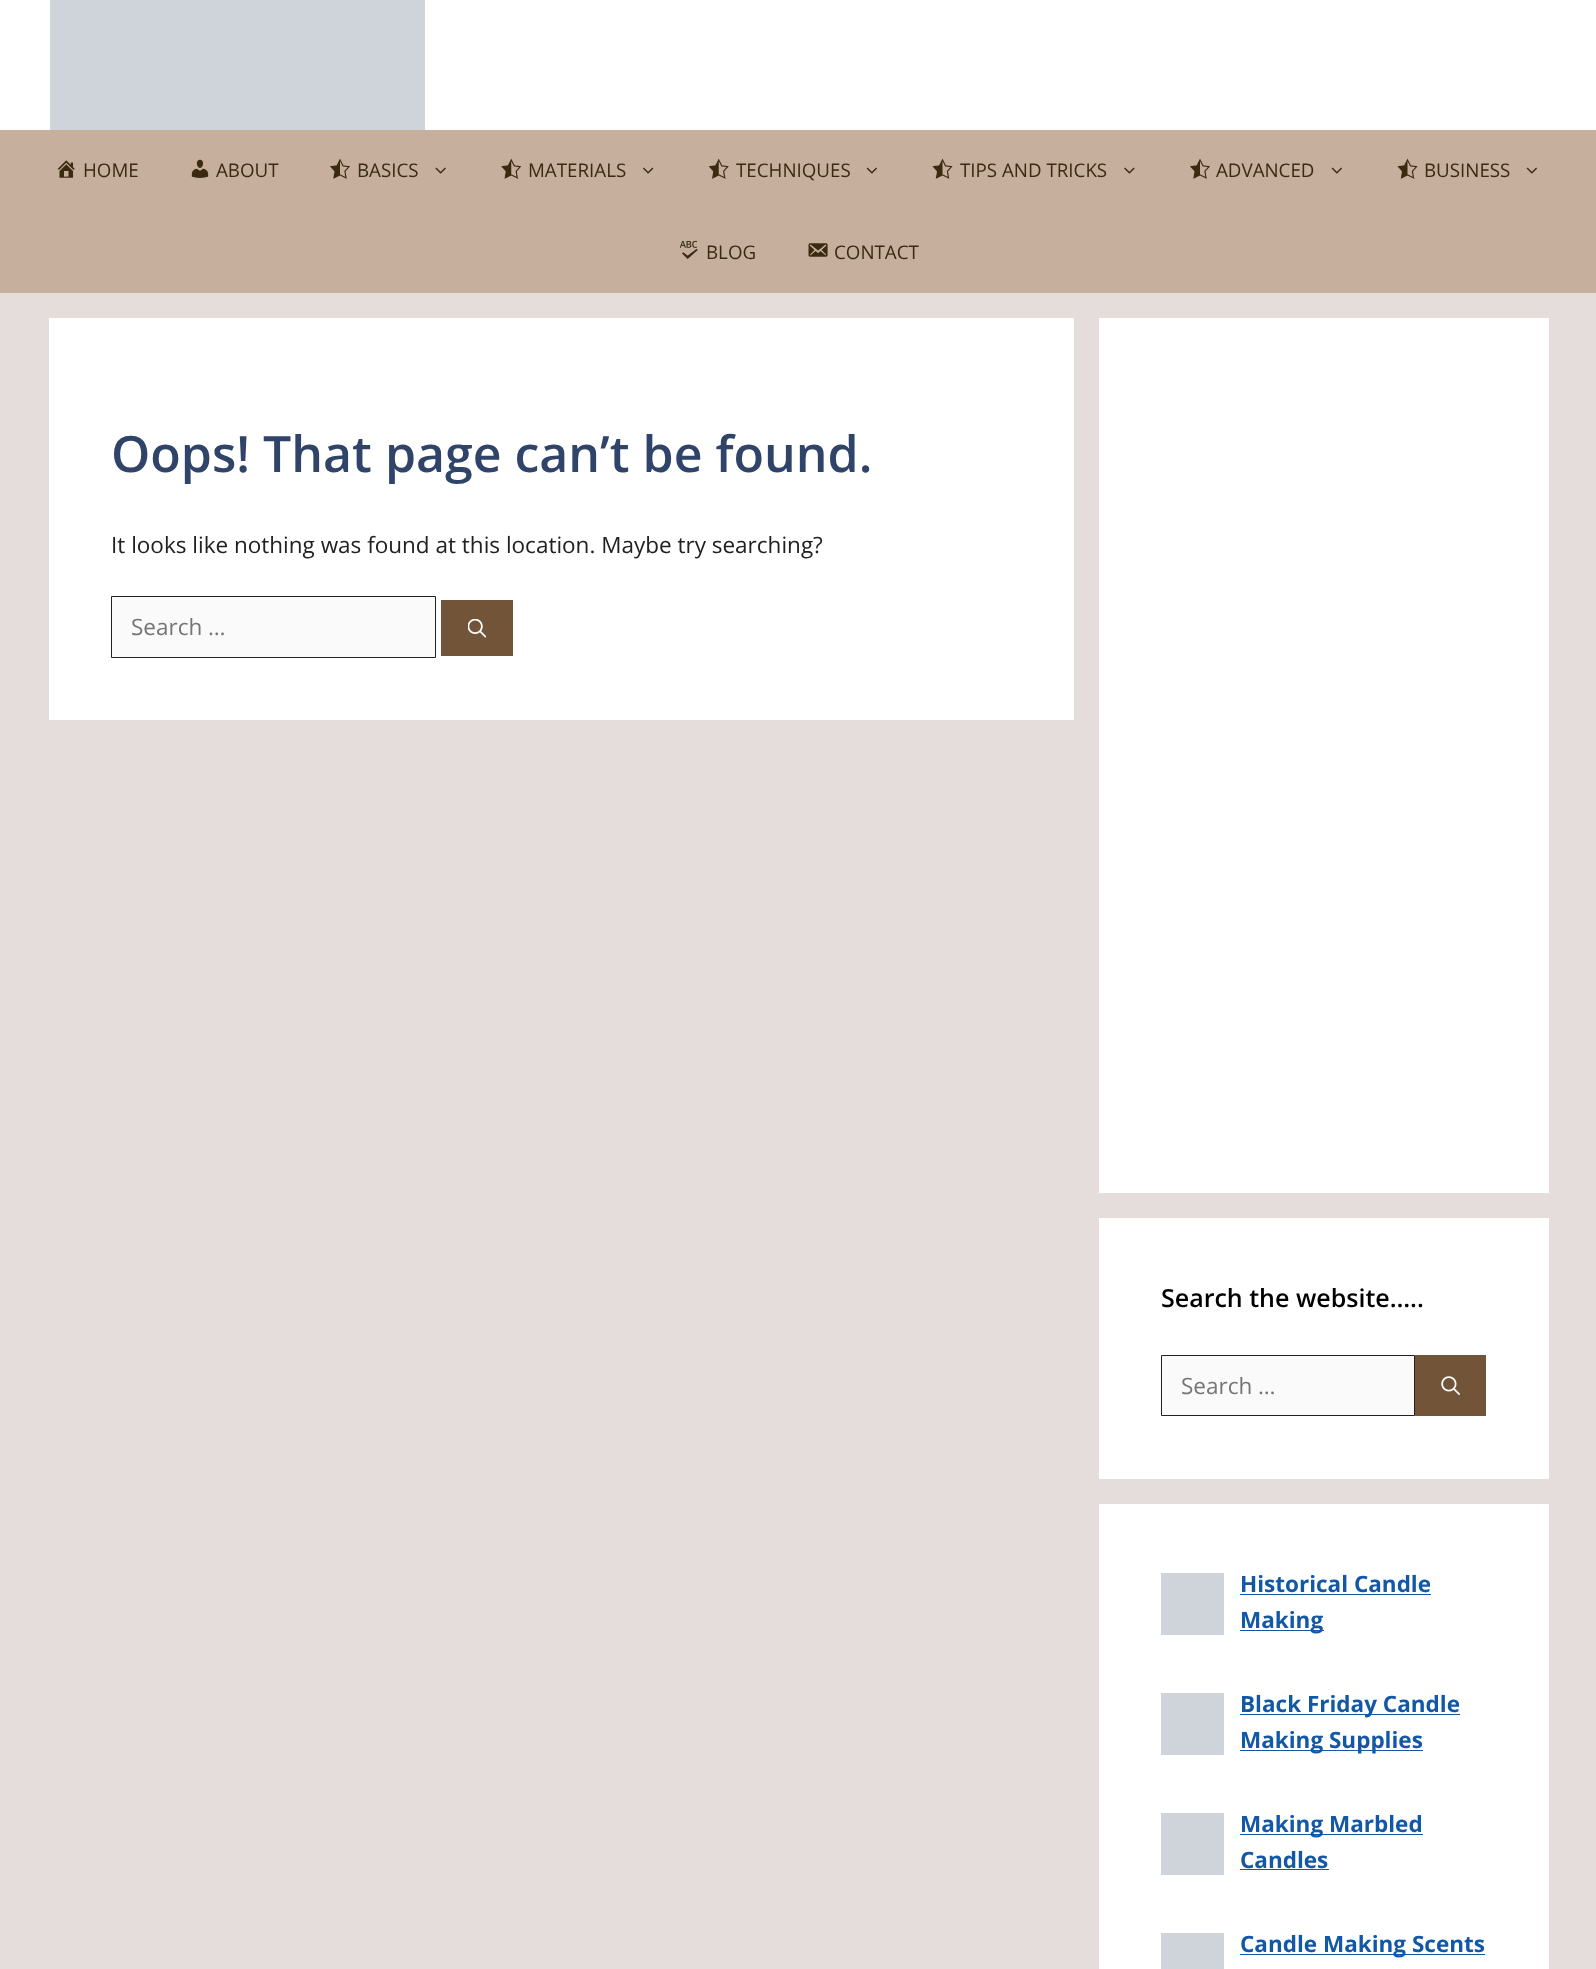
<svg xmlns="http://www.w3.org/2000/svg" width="1596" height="1969">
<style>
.a{font:18.75px Open Sans;fill:#392a11}
.b{font:600 50px Open Sans;fill:#2f4468}
.c{font:22.5px Open Sans;fill:#212121}
.d{font:22.5px Open Sans;fill:#757575}
.e{font:600 25px Open Sans;fill:#000}
.f{font:bold 22.5px Open Sans;fill:#1258a6}
</style>
<rect width="100%" height="100%" fill="#e4dddc"/>
<path fill="#fff" d="M0 0h1596v130H0z"/>
<path fill="#cfd4db" d="M50 0h375v130H50z"/>
<path fill="#c6af9c" d="M0 130h1596v163H0z"/>
<image href="1.png" x="57" y="160" width="18" height="18"/>
<image href="2.png" x="191" y="159" width="18" height="19"/>
<image href="3.png" x="330" y="158" width="20" height="21"/>
<image href="4.png" x="435" y="167" width="11" height="7"/>
<image href="5.png" x="501" y="158" width="21" height="21"/>
<image href="6.png" x="643" y="167" width="11" height="7"/>
<image href="7.png" x="708" y="158" width="21" height="21"/>
<image href="8.png" x="866" y="167" width="11" height="7"/>
<image href="9.png" x="932" y="158" width="21" height="21"/>
<image href="10.png" x="1124" y="167" width="11" height="7"/>
<image href="3.png" x="1190" y="158" width="20" height="21"/>
<image href="8.png" x="1331" y="167" width="11" height="7"/>
<image href="9.png" x="1397" y="158" width="21" height="21"/>
<image href="8.png" x="1526" y="167" width="11" height="7"/>
<image href="11.png" x="679" y="240" width="19" height="19"/>
<image href="12.png" x="808" y="243" width="20" height="14"/>
<path fill="#fff" d="M49 318h1025v402H49z"/>
<path fill="#fafafa" stroke="#212121" d="M111.5 596.5h324v61H111.5z"/>
<path fill="#725538" d="M441 600h72v56H441z"/>
<image href="13.png" x="468" y="619" width="18" height="19"/>
<path fill="#fff" d="M1099 318h450v875H1099z"/>
<path fill="#fff" d="M1099 1218h450v261H1099z"/>
<path fill="#fafafa" stroke="#212121" d="M1161.5 1355.5h253v60H1161.5z"/>
<path fill="#725538" d="M1415 1355h71v61H1415z"/>
<image href="14.png" x="1441" y="1376" width="19" height="19"/>
<path fill="#fff" d="M1099 1504h450v465H1099z"/>
<path fill="#cfd4db" d="M1161 1573h63v62H1161z"/>
<path fill="#1258a6" d="M1240 1594h191v1H1240z"/>
<path fill="#1258a6" d="M1240 1630h84v1H1240z"/>
<path fill="#cfd4db" d="M1161 1693h63v62H1161z"/>
<path fill="#1258a6" d="M1240 1714h220v1H1240z"/>
<path fill="#1258a6" d="M1240 1750h183v1H1240z"/>
<path fill="#cfd4db" d="M1161 1813h63v62H1161z"/>
<path fill="#1258a6" d="M1240 1834h183v1H1240z"/>
<path fill="#1258a6" d="M1240 1869h89v1H1240z"/>
<path fill="#cfd4db" d="M1161 1933h63v36H1161z"/>
<path fill="#1258a6" d="M1240 1954h245v1H1240z"/>
<text class="a" x="83" y="177">HOME</text>
<text class="a" x="216" y="177">ABOUT</text>
<text class="a" x="357" y="177">BASICS</text>
<text class="a" x="528" y="177">MATERIALS</text>
<text class="a" x="736" y="177">TECHNIQUES</text>
<text class="a" x="960" y="177">TIPS AND TRICKS</text>
<text class="a" x="1216" y="177">ADVANCED</text>
<text class="a" x="1424" y="177">BUSINESS</text>
<text class="a" x="706" y="259">BLOG</text>
<text class="a" x="834" y="259">CONTACT</text>
<text class="b" x="111" y="472">Oops! That page can’t be found.</text>
<text class="c" x="111" y="553">It looks like nothing was found at this location. Maybe try searching?</text>
<text class="d" x="131" y="635">Search …</text>
<text class="e" x="1161" y="1307">Search the website…..</text>
<text class="d" x="1181" y="1394">Search …</text>
<text class="f" x="1240" y="1592">Historical Candle</text>
<text class="f" x="1240" y="1628">Making</text>
<text class="f" x="1240" y="1712">Black Friday Candle</text>
<text class="f" x="1240" y="1748">Making Supplies</text>
<text class="f" x="1240" y="1832">Making Marbled</text>
<text class="f" x="1240" y="1868">Candles</text>
<text class="f" x="1240" y="1952">Candle Making Scents</text>
</svg>
